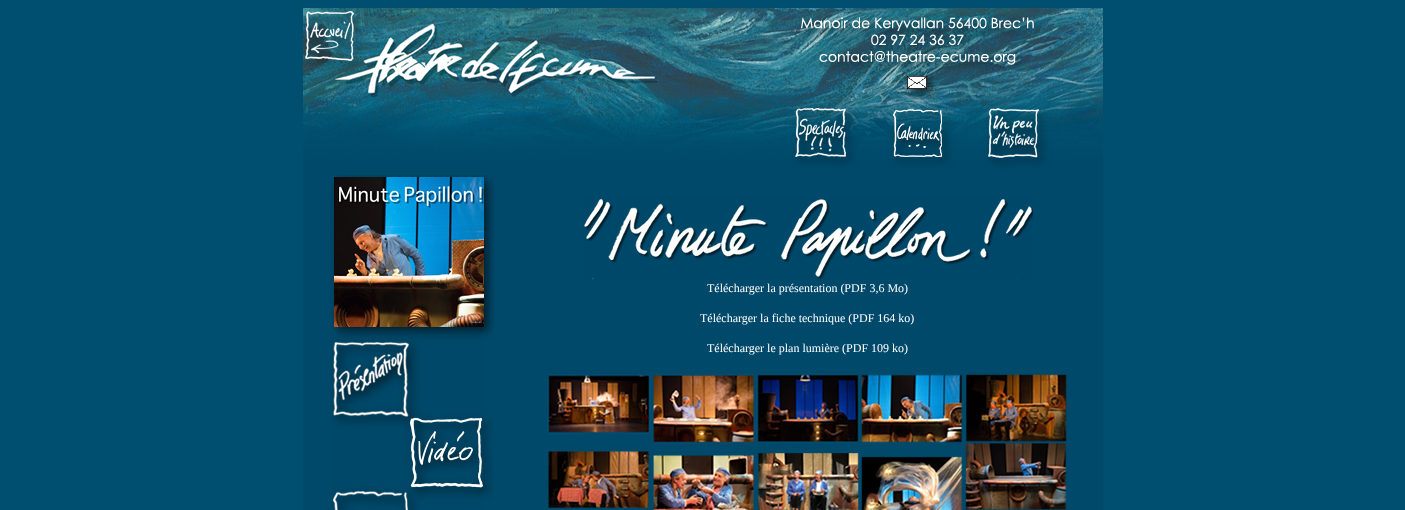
<svg xmlns="http://www.w3.org/2000/svg" width="1405" height="510">
<style>
.a{font:12px Liberation Serif;fill:#fff}
</style>
<rect width="100%" height="100%" fill="#004f70"/>
<path fill="#00496a" d="M303 169h800v6H303z"/>
<image href="1.png" x="303" y="8" width="800" height="161"/>
<path fill="#00496a" d="M303 175h800v335H303z"/>
<image href="2.png" x="330" y="175" width="165" height="335"/>
<image href="3.png" x="583" y="197" width="450" height="83"/>
<image href="4.png" x="546" y="372" width="521" height="138"/>
<text class="a" x="707" y="292">Télécharger la présentation (PDF 3,6 Mo)</text>
<text class="a" x="700" y="322">Télécharger la fiche technique (PDF 164 ko)</text>
<text class="a" x="707" y="352">Télécharger le plan lumière (PDF 109 ko)</text>
</svg>
